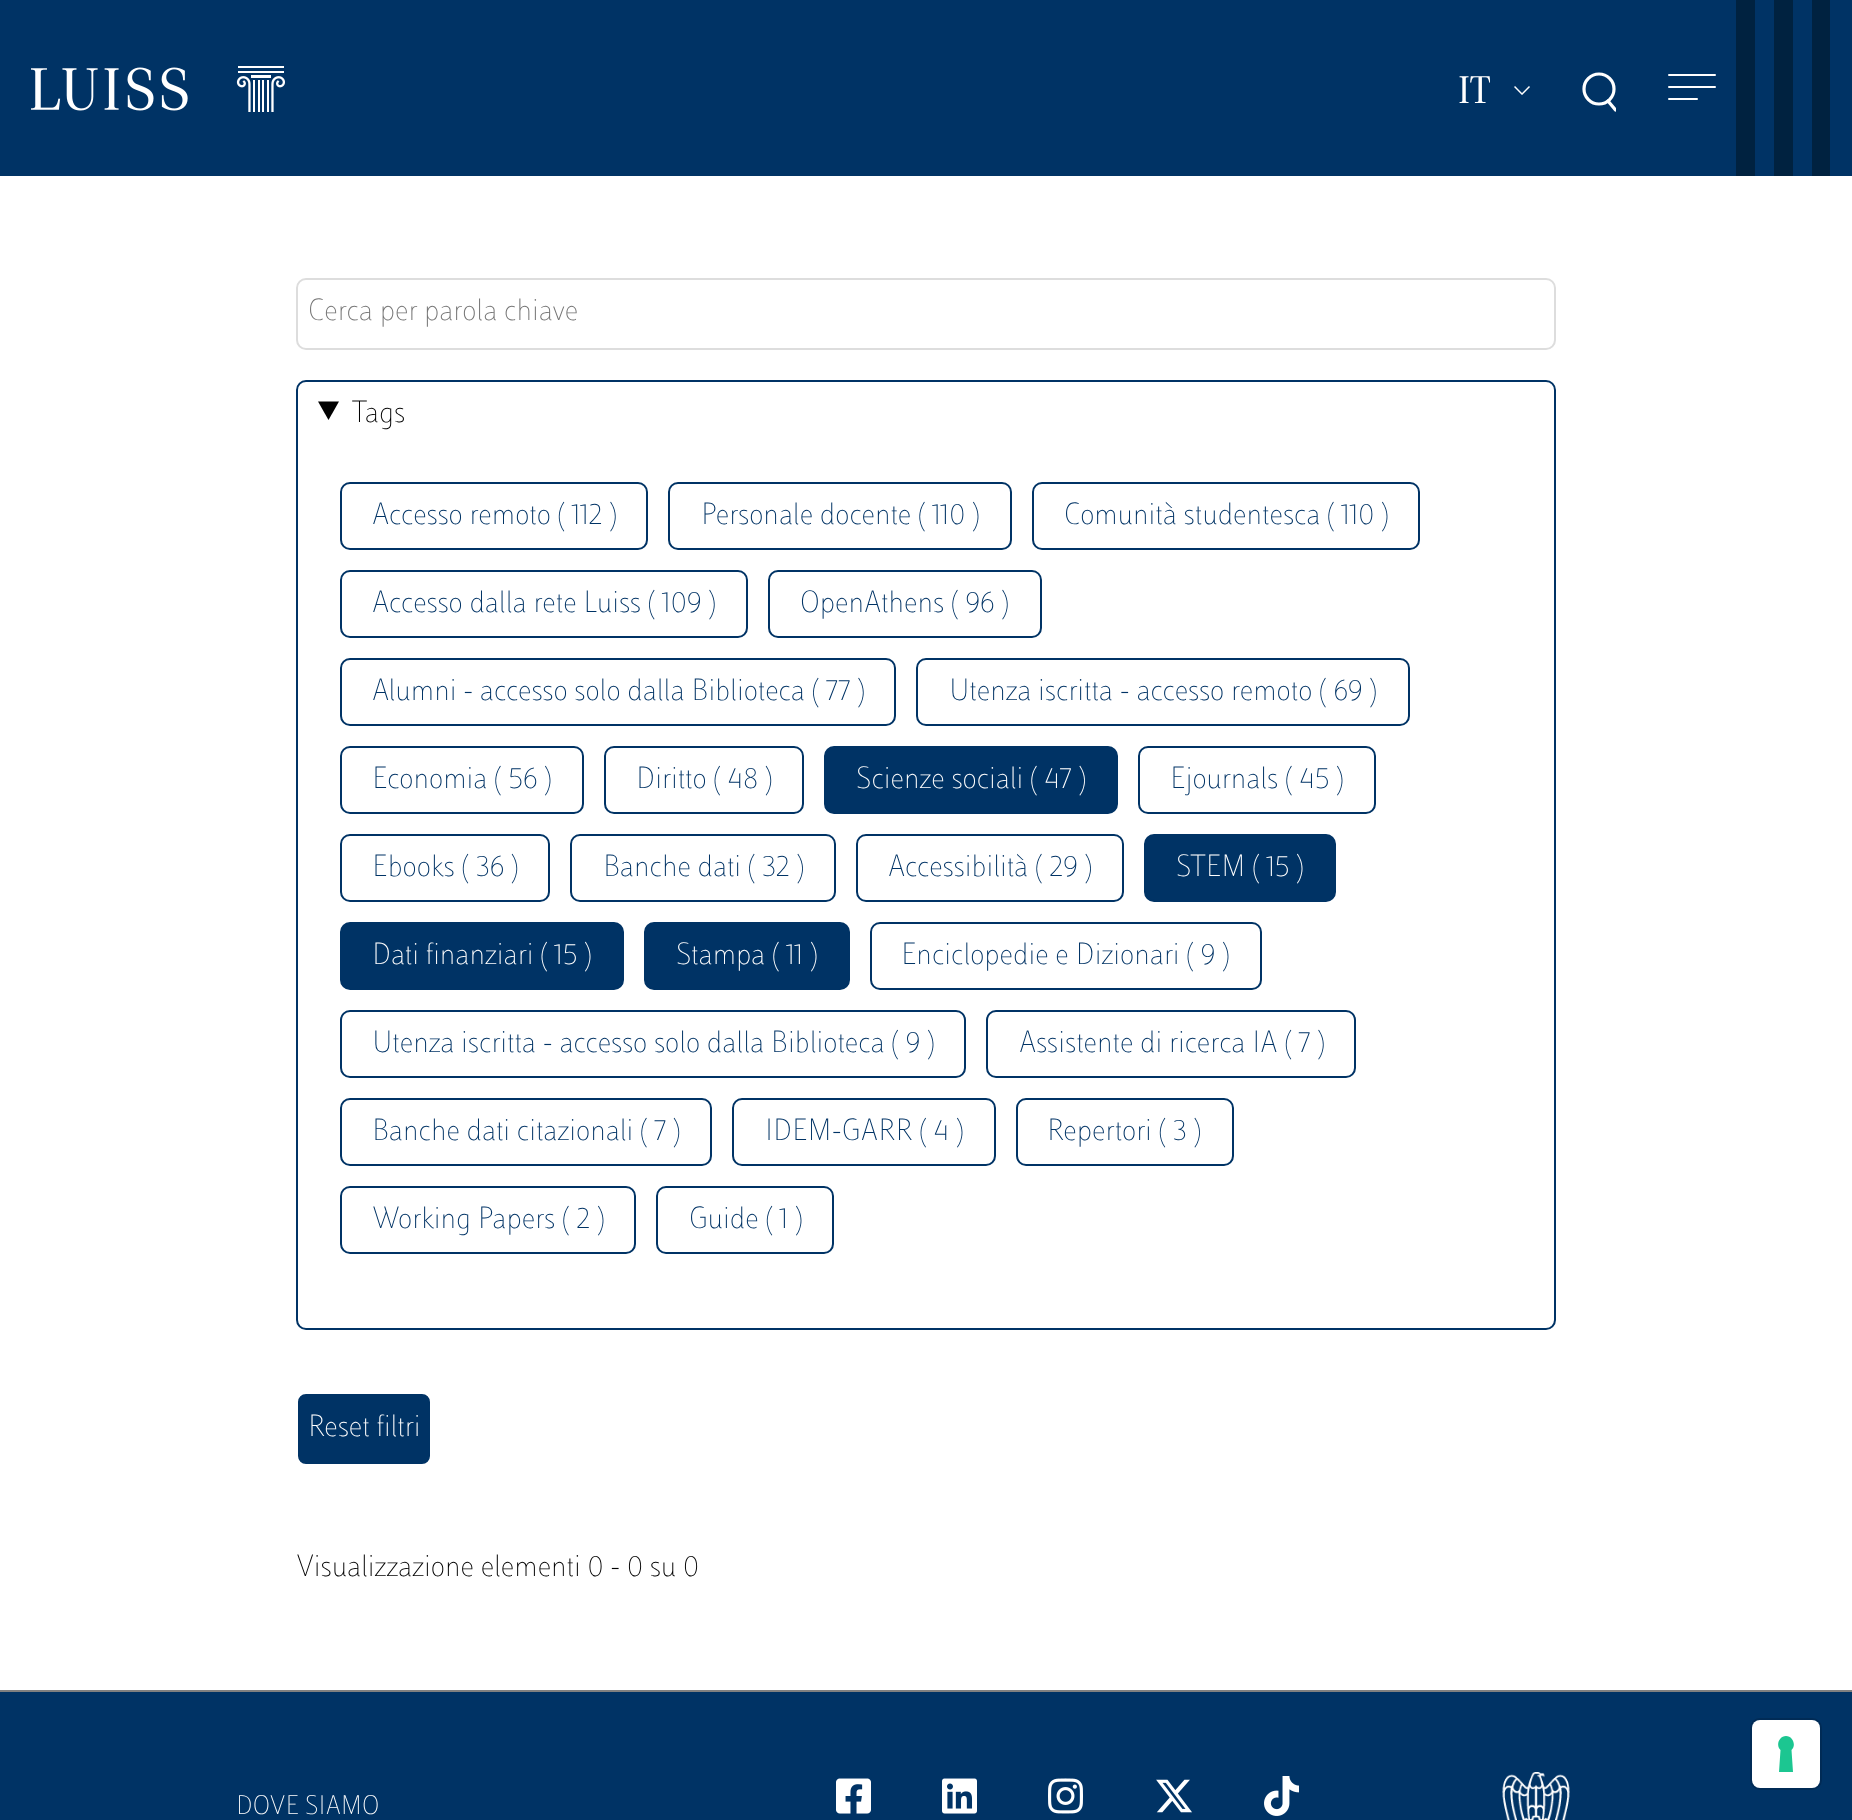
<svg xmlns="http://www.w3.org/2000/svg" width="1852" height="1820">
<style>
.a{font:40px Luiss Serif;fill:#fff}
.b{font:100 32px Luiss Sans;fill:#757575}
.c{font:100 32px Luiss Sans;fill:#010101}
.d{font:100 32px Luiss Sans;fill:#003365}
.e{font:100 32px Luiss Sans;fill:#fff}
.f{font:100 28px Luiss Sans;fill:#fff}
</style>
<defs>
<clipPath id="clip1"><path d="M1582 72h34v40H1582z"/></clipPath>
<clipPath id="clip2"><path d="M1458 62h32v60H1458z"/></clipPath>
</defs>
<rect width="100%" height="100%" fill="#fff"/>
<path fill="#003365" d="M0 0h1852v176H0z"/>
<image href="1.png" x="31" y="66" width="254" height="46"/>
<image href="2.png" x="1514" y="86" width="16" height="9"/>
<circle fill="none" stroke="#fff" stroke-width="3.2" cx="1599" cy="89" r="15"/>
<g clip-path="url(#clip1)">
<path fill="none" stroke="#fff" stroke-width="3.2" stroke-linecap="round" stroke-linejoin="round" d="M1615.5 110l-7.5-9"/>
</g>
<rect fill="#fff" x="1668" y="74" width="48" height="2" rx="1"/>
<rect fill="#fff" x="1668" y="86" width="48" height="2" rx="1"/>
<rect fill="#fff" x="1668" y="98" width="30" height="2" rx="1"/>
<path fill="#002240" d="M1736 0h19v176H1736z"/>
<path fill="#002240" d="M1774 0h19v176H1774z"/>
<path fill="#002240" d="M1812 0h18v176H1812z"/>
<rect fill="none" stroke="#ddd" stroke-width="2" x="297" y="279" width="1258" height="70" rx="9"/>
<rect fill="none" stroke="#003365" stroke-width="2" x="297" y="381" width="1258" height="948" rx="9"/>
<path fill="#010101" d="M318 401.5h21l-10.5 18.5z"/>
<rect fill="none" stroke="#003365" stroke-width="2" x="341" y="483" width="306" height="66" rx="9"/>
<rect fill="none" stroke="#003365" stroke-width="2" x="669" y="483" width="342" height="66" rx="9"/>
<rect fill="none" stroke="#003365" stroke-width="2" x="1033" y="483" width="386" height="66" rx="9"/>
<rect fill="none" stroke="#003365" stroke-width="2" x="341" y="571" width="406" height="66" rx="9"/>
<rect fill="none" stroke="#003365" stroke-width="2" x="769" y="571" width="272" height="66" rx="9"/>
<rect fill="none" stroke="#003365" stroke-width="2" x="341" y="659" width="554" height="66" rx="9"/>
<rect fill="none" stroke="#003365" stroke-width="2" x="917" y="659" width="492" height="66" rx="9"/>
<rect fill="none" stroke="#003365" stroke-width="2" x="341" y="747" width="242" height="66" rx="9"/>
<rect fill="none" stroke="#003365" stroke-width="2" x="605" y="747" width="198" height="66" rx="9"/>
<rect fill="#003365" stroke="#003365" stroke-width="2" x="825" y="747" width="292" height="66" rx="9"/>
<rect fill="none" stroke="#003365" stroke-width="2" x="1139" y="747" width="236" height="66" rx="9"/>
<rect fill="none" stroke="#003365" stroke-width="2" x="341" y="835" width="208" height="66" rx="9"/>
<rect fill="none" stroke="#003365" stroke-width="2" x="571" y="835" width="264" height="66" rx="9"/>
<rect fill="none" stroke="#003365" stroke-width="2" x="857" y="835" width="266" height="66" rx="9"/>
<rect fill="#003365" stroke="#003365" stroke-width="2" x="1145" y="835" width="190" height="66" rx="9"/>
<rect fill="#003365" stroke="#003365" stroke-width="2" x="341" y="923" width="282" height="66" rx="9"/>
<rect fill="#003365" stroke="#003365" stroke-width="2" x="645" y="923" width="204" height="66" rx="9"/>
<rect fill="none" stroke="#003365" stroke-width="2" x="871" y="923" width="390" height="66" rx="9"/>
<rect fill="none" stroke="#003365" stroke-width="2" x="341" y="1011" width="624" height="66" rx="9"/>
<rect fill="none" stroke="#003365" stroke-width="2" x="987" y="1011" width="368" height="66" rx="9"/>
<rect fill="none" stroke="#003365" stroke-width="2" x="341" y="1099" width="370" height="66" rx="9"/>
<rect fill="none" stroke="#003365" stroke-width="2" x="733" y="1099" width="262" height="66" rx="9"/>
<rect fill="none" stroke="#003365" stroke-width="2" x="1017" y="1099" width="216" height="66" rx="9"/>
<rect fill="none" stroke="#003365" stroke-width="2" x="341" y="1187" width="294" height="66" rx="9"/>
<rect fill="none" stroke="#003365" stroke-width="2" x="657" y="1187" width="176" height="66" rx="9"/>
<rect fill="#003365" stroke="#fff" stroke-width="2" x="297" y="1393" width="134" height="72" rx="9"/>
<path fill="#003365" d="M0 1692h1852v128H0z"/>
<path fill="#808080" d="M0 1690h1852v2H0z"/>
<image href="3.png" x="836" y="1778" width="35" height="36"/>
<image href="4.png" x="942" y="1778" width="35" height="36"/>
<image href="5.png" x="1048" y="1778" width="35" height="36"/>
<image href="6.png" x="1156" y="1779" width="36" height="34"/>
<image href="7.png" x="1264" y="1776" width="35" height="40"/>
<image href="8.png" x="1502" y="1772" width="68" height="48"/>
<rect fill="none" stroke="#002b56" stroke-width="2" x="1751" y="1719" width="70" height="70" rx="9"/>
<rect fill="#fff" x="1752" y="1720" width="68" height="68" rx="8"/>
<path fill="#1cc691" fill-rule="evenodd" d="M1786 1736c7 0 10.5 9.5 5.5 14l1.5 22h-14l1.5-22c-5-4.5-1.5-14 5.5-14z"/>
<g clip-path="url(#clip2)">
<text class="a" x="1458" y="103">IT</text>
</g>
<text class="b" x="308" y="320">Cerca per parola chiave</text>
<text class="c" x="352" y="422">Tags</text>
<text class="d" x="372" y="524">Accesso remoto ( 112 )</text>
<text class="d" x="701" y="524">Personale docente ( 110 )</text>
<text class="d" x="1064" y="524">Comunità studentesca ( 110 )</text>
<text class="d" x="372" y="612">Accesso dalla rete Luiss ( 109 )</text>
<text class="d" x="800" y="612">OpenAthens ( 96 )</text>
<text class="d" x="372" y="700">Alumni - accesso solo dalla Biblioteca ( 77 )</text>
<text class="d" x="949" y="700">Utenza iscritta - accesso remoto ( 69 )</text>
<text class="d" x="372" y="788">Economia ( 56 )</text>
<text class="d" x="636" y="788">Diritto ( 48 )</text>
<text class="e" x="856" y="788">Scienze sociali ( 47 )</text>
<text class="d" x="1170" y="788">Ejournals ( 45 )</text>
<text class="d" x="372" y="876">Ebooks ( 36 )</text>
<text class="d" x="603" y="876">Banche dati ( 32 )</text>
<text class="d" x="888" y="876">Accessibilità ( 29 )</text>
<text class="e" x="1176" y="876">STEM ( 15 )</text>
<text class="e" x="372" y="964">Dati finanziari ( 15 )</text>
<text class="e" x="676" y="964">Stampa ( 11 )</text>
<text class="d" x="901" y="964">Enciclopedie e Dizionari ( 9 )</text>
<text class="d" x="372" y="1052">Utenza iscritta - accesso solo dalla Biblioteca ( 9 )</text>
<text class="d" x="1019" y="1052">Assistente di ricerca IA ( 7 )</text>
<text class="d" x="372" y="1140">Banche dati citazionali ( 7 )</text>
<text class="d" x="765" y="1140">IDEM-GARR ( 4 )</text>
<text class="d" x="1047" y="1140">Repertori ( 3 )</text>
<text class="d" x="372" y="1228">Working Papers ( 2 )</text>
<text class="d" x="689" y="1228">Guide ( 1 )</text>
<text class="e" x="308" y="1436">Reset filtri</text>
<text class="c" x="296" y="1576">Visualizzazione elementi 0 - 0 su 0</text>
<text class="f" x="236" y="1814">DOVE SIAMO</text>
</svg>
